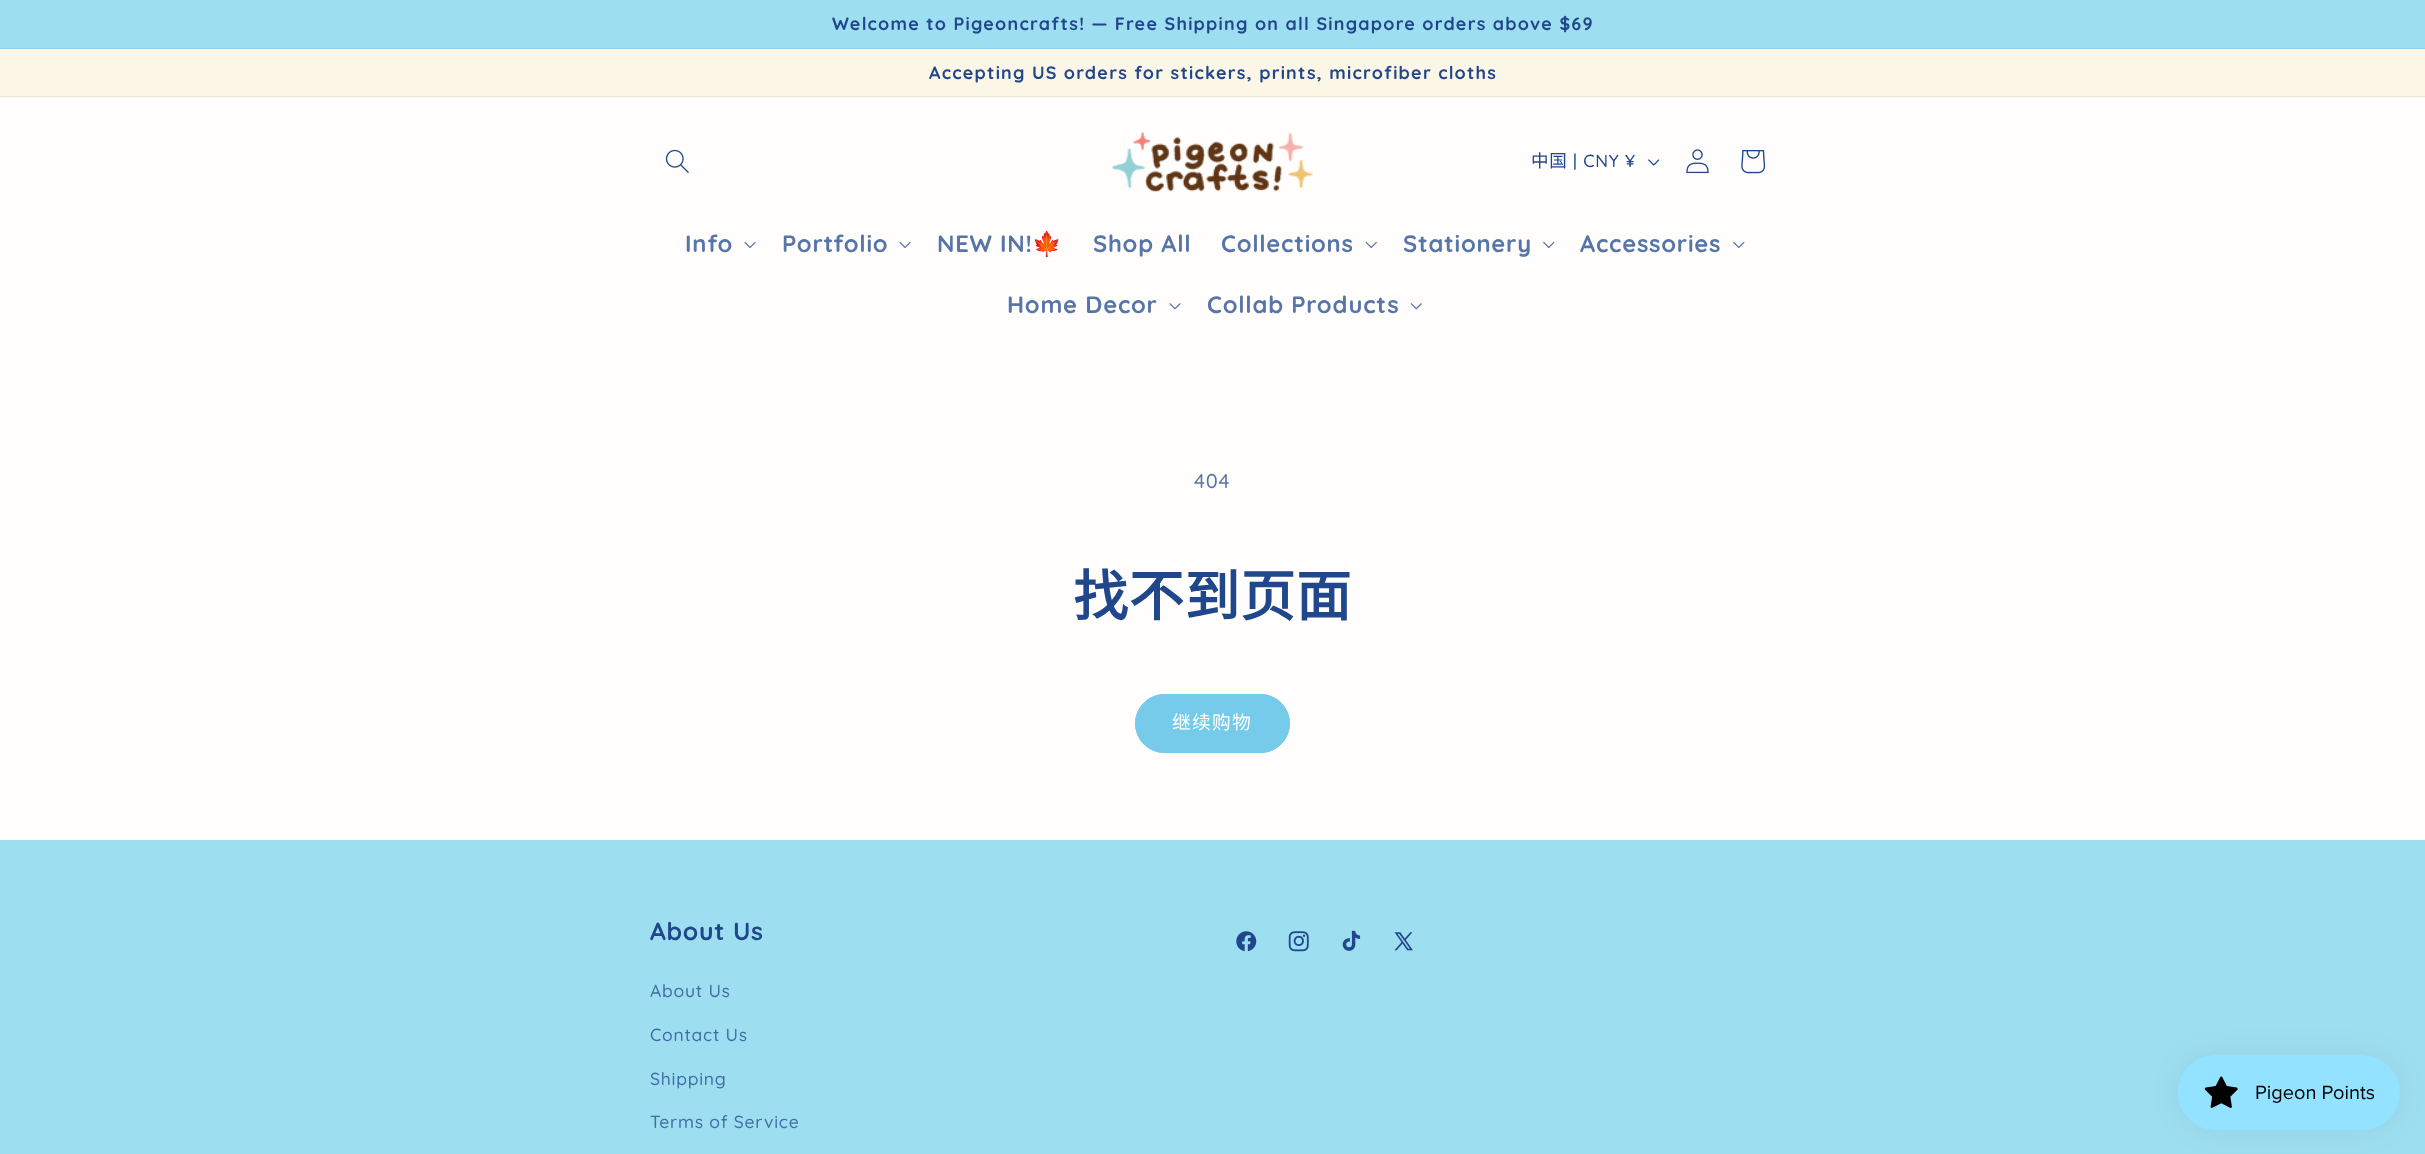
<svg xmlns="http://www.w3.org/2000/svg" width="2425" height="1154">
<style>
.a{font:bold 17.9px Quicksand;letter-spacing:1.25px;fill:#20478b}
.b{font:17.5px Noto Sans CJK SC;letter-spacing:0.75px;fill:#20478b}
.c{font:500 17.5px Quicksand;letter-spacing:0.75px;fill:#20478b}
.d{font:bold 23.75px Quicksand;letter-spacing:0.75px;fill:#5875a8}
.e{font:bold 23.75px Noto Color Emoji;letter-spacing:0.75px;fill:#5875a8}
.f{font:500 20px Quicksand;letter-spacing:0.75px;fill:#5875a8}
.g{font:bold 55px Noto Sans CJK SC;letter-spacing:0.75px;fill:#20478b}
.h{font:18.75px Noto Sans CJK SC;letter-spacing:1.25px;fill:#fff}
.i{font:bold 24.75px Quicksand;letter-spacing:0.75px;fill:#20478b}
.j{font:500 17.5px Quicksand;letter-spacing:0.75px;fill:#406da5}
</style>
<rect width="100%" height="100%" fill="#fffefd"/>
<path fill="#9edef1" d="M0 0h2425v48H0z"/>
<path fill="#94d2e9" d="M0 48h2425v1H0z"/>
<path fill="#fcf6e7" d="M0 49h2425v49H0z"/>
<path fill="#eae8e0" d="M0 96h2425v1H0z"/>
<image href="1.png" x="665" y="149" width="24" height="24"/>
<image href="2.png" x="1112" y="132" width="201" height="60"/>
<image href="3.png" x="1648" y="159" width="12" height="7"/>
<image href="4.png" x="1686" y="149" width="23" height="25"/>
<image href="5.png" x="1741" y="150" width="25" height="24"/>
<image href="6.png" x="744" y="242" width="12" height="6"/>
<image href="6.png" x="899" y="242" width="12" height="6"/>
<image href="7.png" x="1365" y="241" width="12" height="8"/>
<image href="8.png" x="1543" y="241" width="12" height="8"/>
<image href="8.png" x="1733" y="241" width="12" height="8"/>
<image href="9.png" x="1169" y="303" width="12" height="7"/>
<image href="10.png" x="1410" y="303" width="12" height="7"/>
<rect fill="#75cbe9" x="1135" y="694" width="155" height="59" rx="29.5"/>
<rect fill="none" stroke="#75cbe9" x="1135.5" y="694.5" width="154" height="58" rx="29"/>
<path fill="#9edef1" d="M0 840h2425v314H0z"/>
<image href="11.png" x="1236" y="931" width="21" height="21"/>
<image href="12.png" x="1288" y="931" width="21" height="21"/>
<image href="13.png" x="1342" y="930" width="19" height="21"/>
<image href="14.png" x="1394" y="932" width="19" height="19"/>
<rect fill="#0000000d" filter="blur(15.5px)" x="2178" y="1055" width="222" height="75" rx="37.5"/>
<image href="15.png" x="2178" y="1055" width="222" height="75"/>
<text class="a" x="832" y="30">Welcome to Pigeoncrafts! — Free Shipping on all Singapore orders above $69</text>
<text class="a" x="929" y="79">Accepting US orders for stickers, prints, microfiber cloths</text>
<text class="b" x="1531" y="167">中国</text>
<text class="c" x="1573" y="167">| CNY ¥</text>
<text class="d" x="685" y="252">Info</text>
<text class="d" x="782" y="252">Portfolio</text>
<text class="d" x="937" y="252">NEW IN!</text>
<text class="e" x="1032" y="252">🍁</text>
<text class="d" x="1093" y="252">Shop All</text>
<text class="d" x="1221" y="252">Collections</text>
<text class="d" x="1403" y="252">Stationery</text>
<text class="d" x="1580" y="252">Accessories</text>
<text class="d" x="1007" y="313">Home Decor</text>
<text class="d" x="1207" y="313">Collab Products</text>
<text class="f" x="1194" y="488">404</text>
<text class="g" x="1073" y="616">找不到页面</text>
<text class="h" x="1172" y="729">继续购物</text>
<text class="i" x="650" y="940">About Us</text>
<text class="j" x="650" y="997">About Us</text>
<text class="j" x="650" y="1041">Contact Us</text>
<text class="j" x="650" y="1085">Shipping</text>
<text class="j" x="650" y="1128">Terms of Service</text>
</svg>
